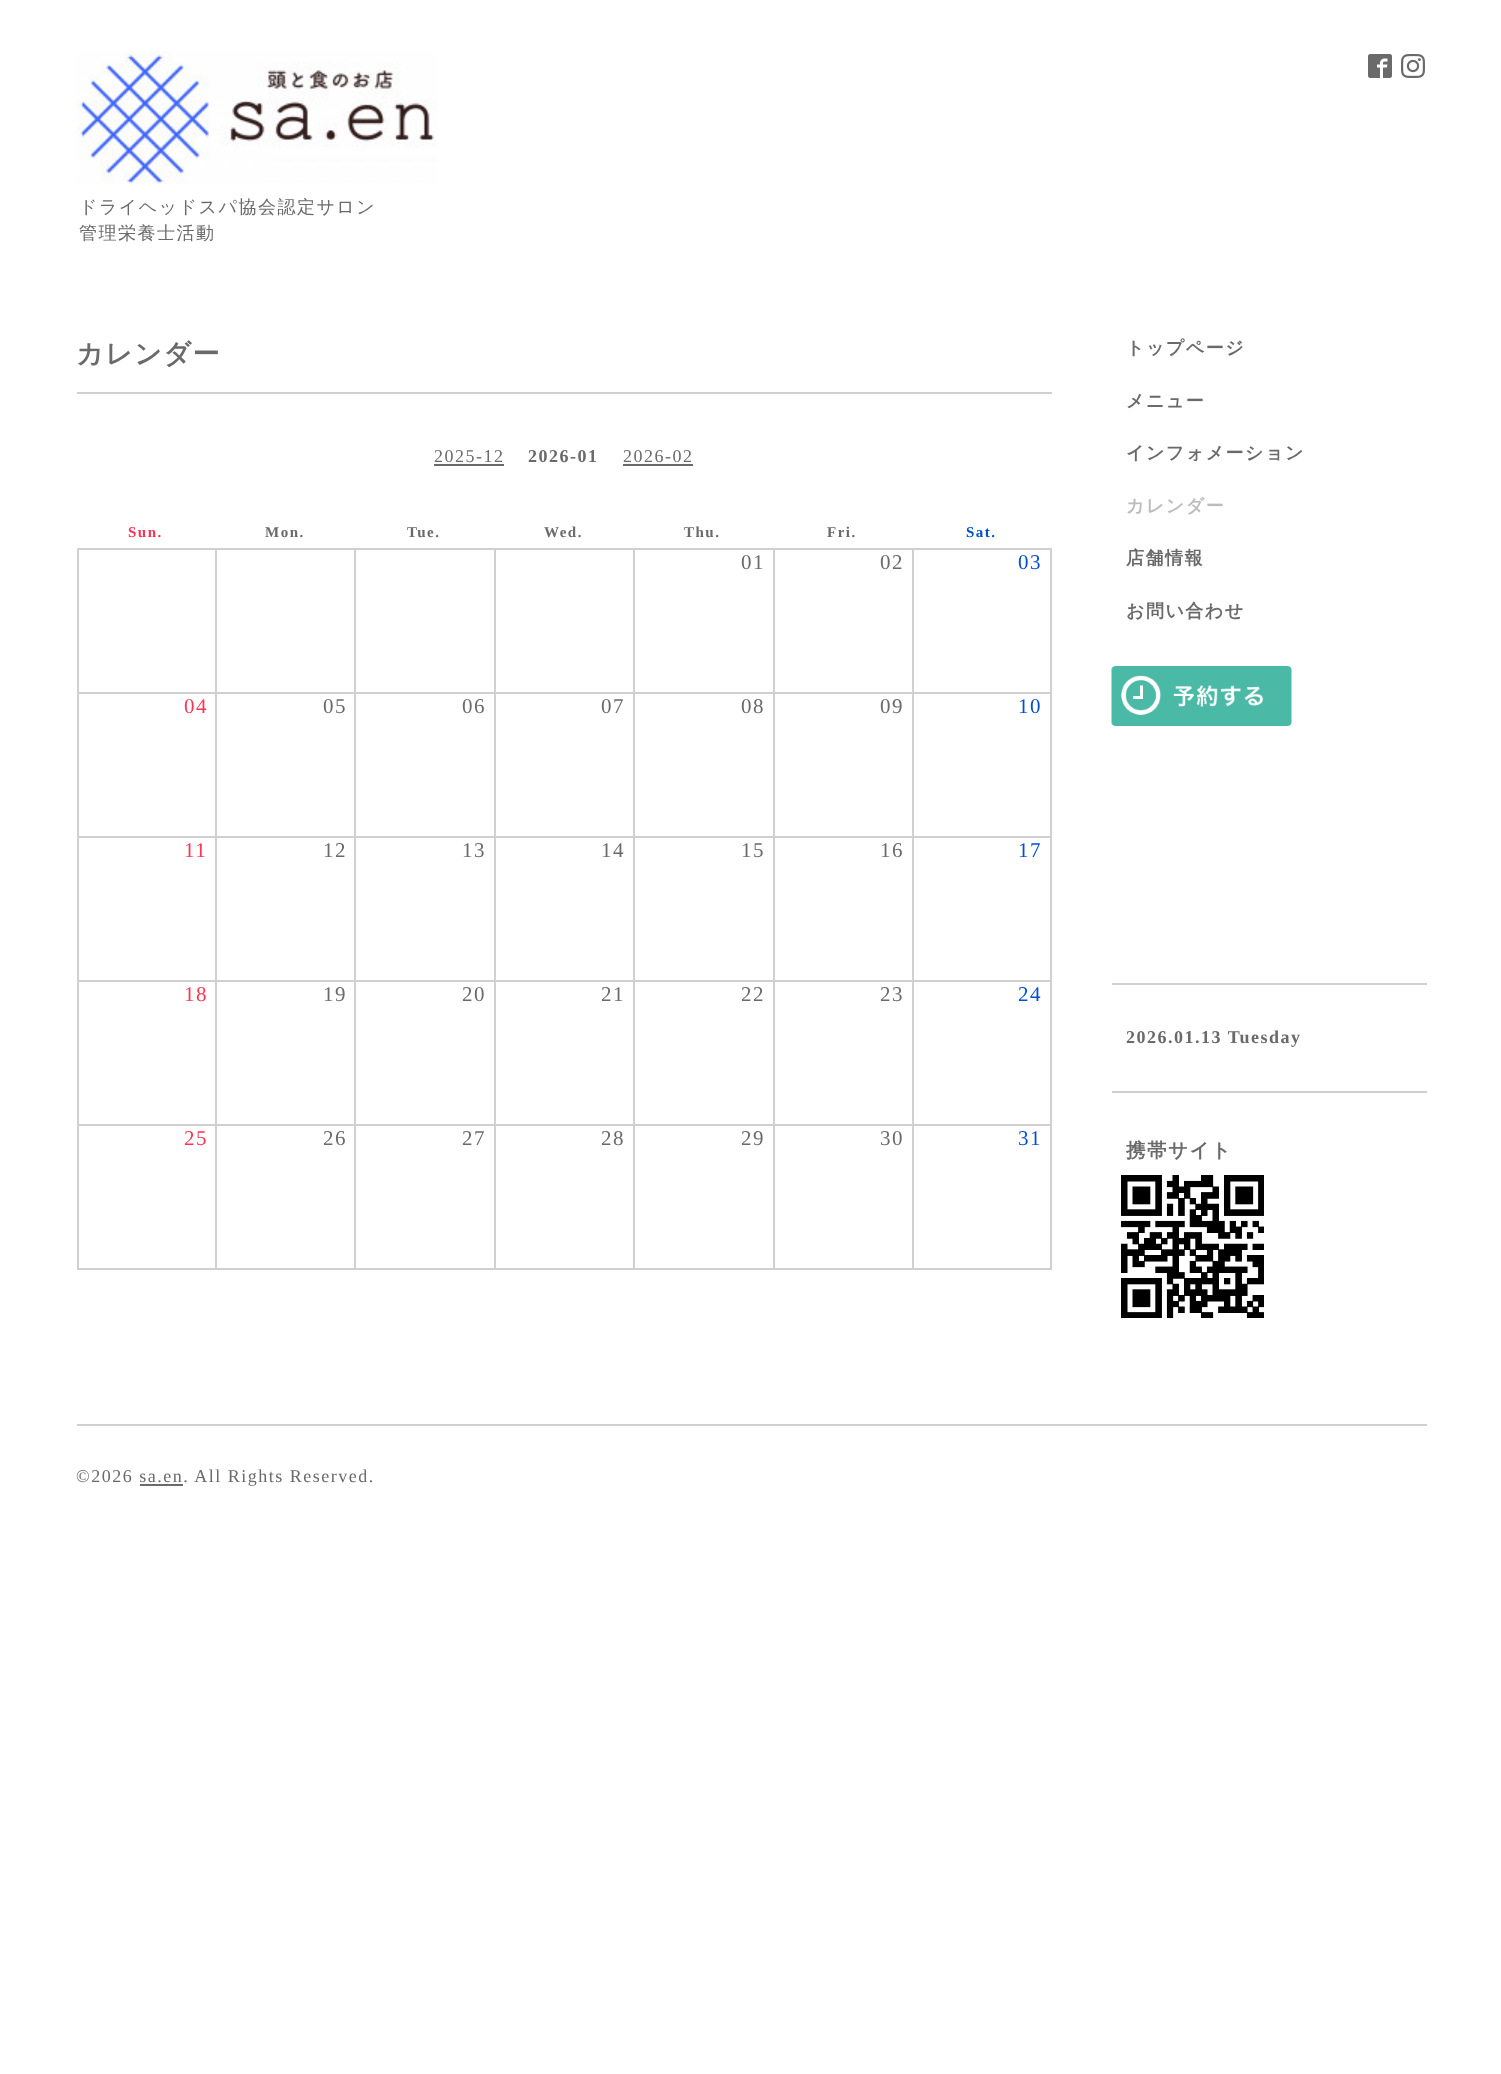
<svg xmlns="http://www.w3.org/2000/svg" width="1501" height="2074">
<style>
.a{font:500 18px WenQuanYi Zen Hei;letter-spacing:1.5px;fill:#6a6a6a}
.b{font:bold 27px WenQuanYi Zen Hei;letter-spacing:1.5px;fill:#6a6a6a}
.c{font:18px Liberation Serif;letter-spacing:1.5px;fill:#6a6a6a}
.d{font:bold 18px Liberation Serif;letter-spacing:1.5px;fill:#6a6a6a}
.e{font:bold 15px Liberation Serif;letter-spacing:1.5px;fill:#f35}
.f{font:bold 15px Liberation Serif;letter-spacing:1.5px;fill:#6a6a6a}
.g{font:bold 15px Liberation Serif;letter-spacing:1.5px;fill:#0250d0}
.h{font:21px Liberation Serif;letter-spacing:1.5px;fill:#6a6a6a}
.i{font:21px Liberation Serif;letter-spacing:1.5px;fill:#0250d0}
.j{font:21px Liberation Serif;letter-spacing:1.5px;fill:#f35}
.k{font:bold 18px WenQuanYi Zen Hei;letter-spacing:1.5px;fill:#6a6a6a}
.l{font:bold 18px WenQuanYi Zen Hei;letter-spacing:1.5px;fill:#bcbcbc}
.m{font:bold 19.5px WenQuanYi Zen Hei;letter-spacing:1.5px;fill:#6a6a6a}
</style>
<rect width="100%" height="100%" fill="#fff"/>
<image href="1.png" x="1368" y="54" width="24" height="24"/>
<image href="2.png" x="1401" y="54" width="24" height="24"/>
<image href="3.png" x="76" y="51" width="361" height="133"/>
<path fill="#d0d0d0" d="M77 392h975v2H77z"/>
<path fill="#6a6a6a" d="M434 464h70v2H434z"/>
<path fill="#6a6a6a" d="M623 464h70v2H623z"/>
<path fill="#d0d0d0" d="M77 548h975v2H77z"/>
<path fill="#d0d0d0" d="M77 692h835v2H77z"/>
<path fill="#d0d0d0" d="M77 549h2v144H77z"/>
<path fill="#d0d0d0" d="M215 549h2v144H215z"/>
<path fill="#d0d0d0" d="M354 549h2v144H354z"/>
<path fill="#d0d0d0" d="M494 549h2v144H494z"/>
<path fill="#d0d0d0" d="M633 549h2v144H633z"/>
<path fill="#d0d0d0" d="M773 549h2v144H773z"/>
<path fill="#d0d0d0" d="M1050 549h2v144H1050z"/>
<path fill="#d0d0d0" d="M912 692h140v2H912z"/>
<path fill="#d0d0d0" d="M912 549h2v144H912z"/>
<path fill="#d0d0d0" d="M77 836h835v2H77z"/>
<path fill="#d0d0d0" d="M77 693h2v144H77z"/>
<path fill="#d0d0d0" d="M215 693h2v144H215z"/>
<path fill="#d0d0d0" d="M354 693h2v144H354z"/>
<path fill="#d0d0d0" d="M494 693h2v144H494z"/>
<path fill="#d0d0d0" d="M633 693h2v144H633z"/>
<path fill="#d0d0d0" d="M773 693h2v144H773z"/>
<path fill="#d0d0d0" d="M1050 693h2v144H1050z"/>
<path fill="#d0d0d0" d="M912 836h140v2H912z"/>
<path fill="#d0d0d0" d="M912 693h2v144H912z"/>
<path fill="#d0d0d0" d="M77 980h835v2H77z"/>
<path fill="#d0d0d0" d="M77 837h2v144H77z"/>
<path fill="#d0d0d0" d="M215 837h2v144H215z"/>
<path fill="#d0d0d0" d="M354 837h2v144H354z"/>
<path fill="#d0d0d0" d="M494 837h2v144H494z"/>
<path fill="#d0d0d0" d="M633 837h2v144H633z"/>
<path fill="#d0d0d0" d="M773 837h2v144H773z"/>
<path fill="#d0d0d0" d="M1050 837h2v144H1050z"/>
<path fill="#d0d0d0" d="M912 980h140v2H912z"/>
<path fill="#d0d0d0" d="M912 837h2v144H912z"/>
<path fill="#d0d0d0" d="M77 1124h835v2H77z"/>
<path fill="#d0d0d0" d="M77 981h2v144H77z"/>
<path fill="#d0d0d0" d="M215 981h2v144H215z"/>
<path fill="#d0d0d0" d="M354 981h2v144H354z"/>
<path fill="#d0d0d0" d="M494 981h2v144H494z"/>
<path fill="#d0d0d0" d="M633 981h2v144H633z"/>
<path fill="#d0d0d0" d="M773 981h2v144H773z"/>
<path fill="#d0d0d0" d="M1050 981h2v144H1050z"/>
<path fill="#d0d0d0" d="M912 1124h140v2H912z"/>
<path fill="#d0d0d0" d="M912 981h2v144H912z"/>
<path fill="#d0d0d0" d="M77 1268h835v2H77z"/>
<path fill="#d0d0d0" d="M77 1125h2v144H77z"/>
<path fill="#d0d0d0" d="M215 1125h2v144H215z"/>
<path fill="#d0d0d0" d="M354 1125h2v144H354z"/>
<path fill="#d0d0d0" d="M494 1125h2v144H494z"/>
<path fill="#d0d0d0" d="M633 1125h2v144H633z"/>
<path fill="#d0d0d0" d="M773 1125h2v144H773z"/>
<path fill="#d0d0d0" d="M1050 1125h2v144H1050z"/>
<path fill="#d0d0d0" d="M912 1268h140v2H912z"/>
<path fill="#d0d0d0" d="M912 1125h2v144H912z"/>
<image href="4.png" x="1111" y="666" width="181" height="60"/>
<path fill="#d0d0d0" d="M1112 983h315v2H1112z"/>
<path fill="#d0d0d0" d="M1112 1091h315v2H1112z"/>
<image href="5.png" x="1121" y="1175" width="143" height="143"/>
<path fill="#d0d0d0" d="M77 1424h1350v2H77z"/>
<path fill="#6a6a6a" d="M140 1484h43v2H140z"/>
<text class="a" x="79" y="213">ドライヘッドスパ協会認定サロン</text>
<text class="a" x="79" y="239">管理栄養士活動</text>
<text class="b" x="76" y="363">カレンダー</text>
<text class="c" x="434" y="462">2025-12</text>
<text class="d" x="528" y="462">2026-01</text>
<text class="c" x="623" y="462">2026-02</text>
<text class="e" x="128" y="537">Sun.</text>
<text class="f" x="265" y="537">Mon.</text>
<text class="f" x="407" y="537">Tue.</text>
<text class="f" x="544" y="537">Wed.</text>
<text class="f" x="684" y="537">Thu.</text>
<text class="f" x="827" y="537">Fri.</text>
<text class="g" x="966" y="537">Sat.</text>
<text class="h" x="741" y="569">01</text>
<text class="h" x="880" y="569">02</text>
<text class="i" x="1018" y="569">03</text>
<text class="j" x="184" y="713">04</text>
<text class="h" x="323" y="713">05</text>
<text class="h" x="462" y="713">06</text>
<text class="h" x="601" y="713">07</text>
<text class="h" x="741" y="713">08</text>
<text class="h" x="880" y="713">09</text>
<text class="i" x="1018" y="713">10</text>
<text class="j" x="184" y="857">11</text>
<text class="h" x="323" y="857">12</text>
<text class="h" x="462" y="857">13</text>
<text class="h" x="601" y="857">14</text>
<text class="h" x="741" y="857">15</text>
<text class="h" x="880" y="857">16</text>
<text class="i" x="1018" y="857">17</text>
<text class="j" x="184" y="1001">18</text>
<text class="h" x="323" y="1001">19</text>
<text class="h" x="462" y="1001">20</text>
<text class="h" x="601" y="1001">21</text>
<text class="h" x="741" y="1001">22</text>
<text class="h" x="880" y="1001">23</text>
<text class="i" x="1018" y="1001">24</text>
<text class="j" x="184" y="1145">25</text>
<text class="h" x="323" y="1145">26</text>
<text class="h" x="462" y="1145">27</text>
<text class="h" x="601" y="1145">28</text>
<text class="h" x="741" y="1145">29</text>
<text class="h" x="880" y="1145">30</text>
<text class="i" x="1018" y="1145">31</text>
<text class="k" x="1126" y="354">トップページ</text>
<text class="k" x="1126" y="407">メニュー</text>
<text class="k" x="1126" y="459">インフォメーション</text>
<text class="l" x="1126" y="512">カレンダー</text>
<text class="k" x="1126" y="564">店舗情報</text>
<text class="k" x="1126" y="617">お問い合わせ</text>
<text class="d" x="1126" y="1043">2026.01.13 Tuesday</text>
<text class="m" x="1126" y="1157">携帯サイト</text>
<text class="c" x="76" y="1482">©2026 sa.en. All Rights Reserved.</text>
</svg>
